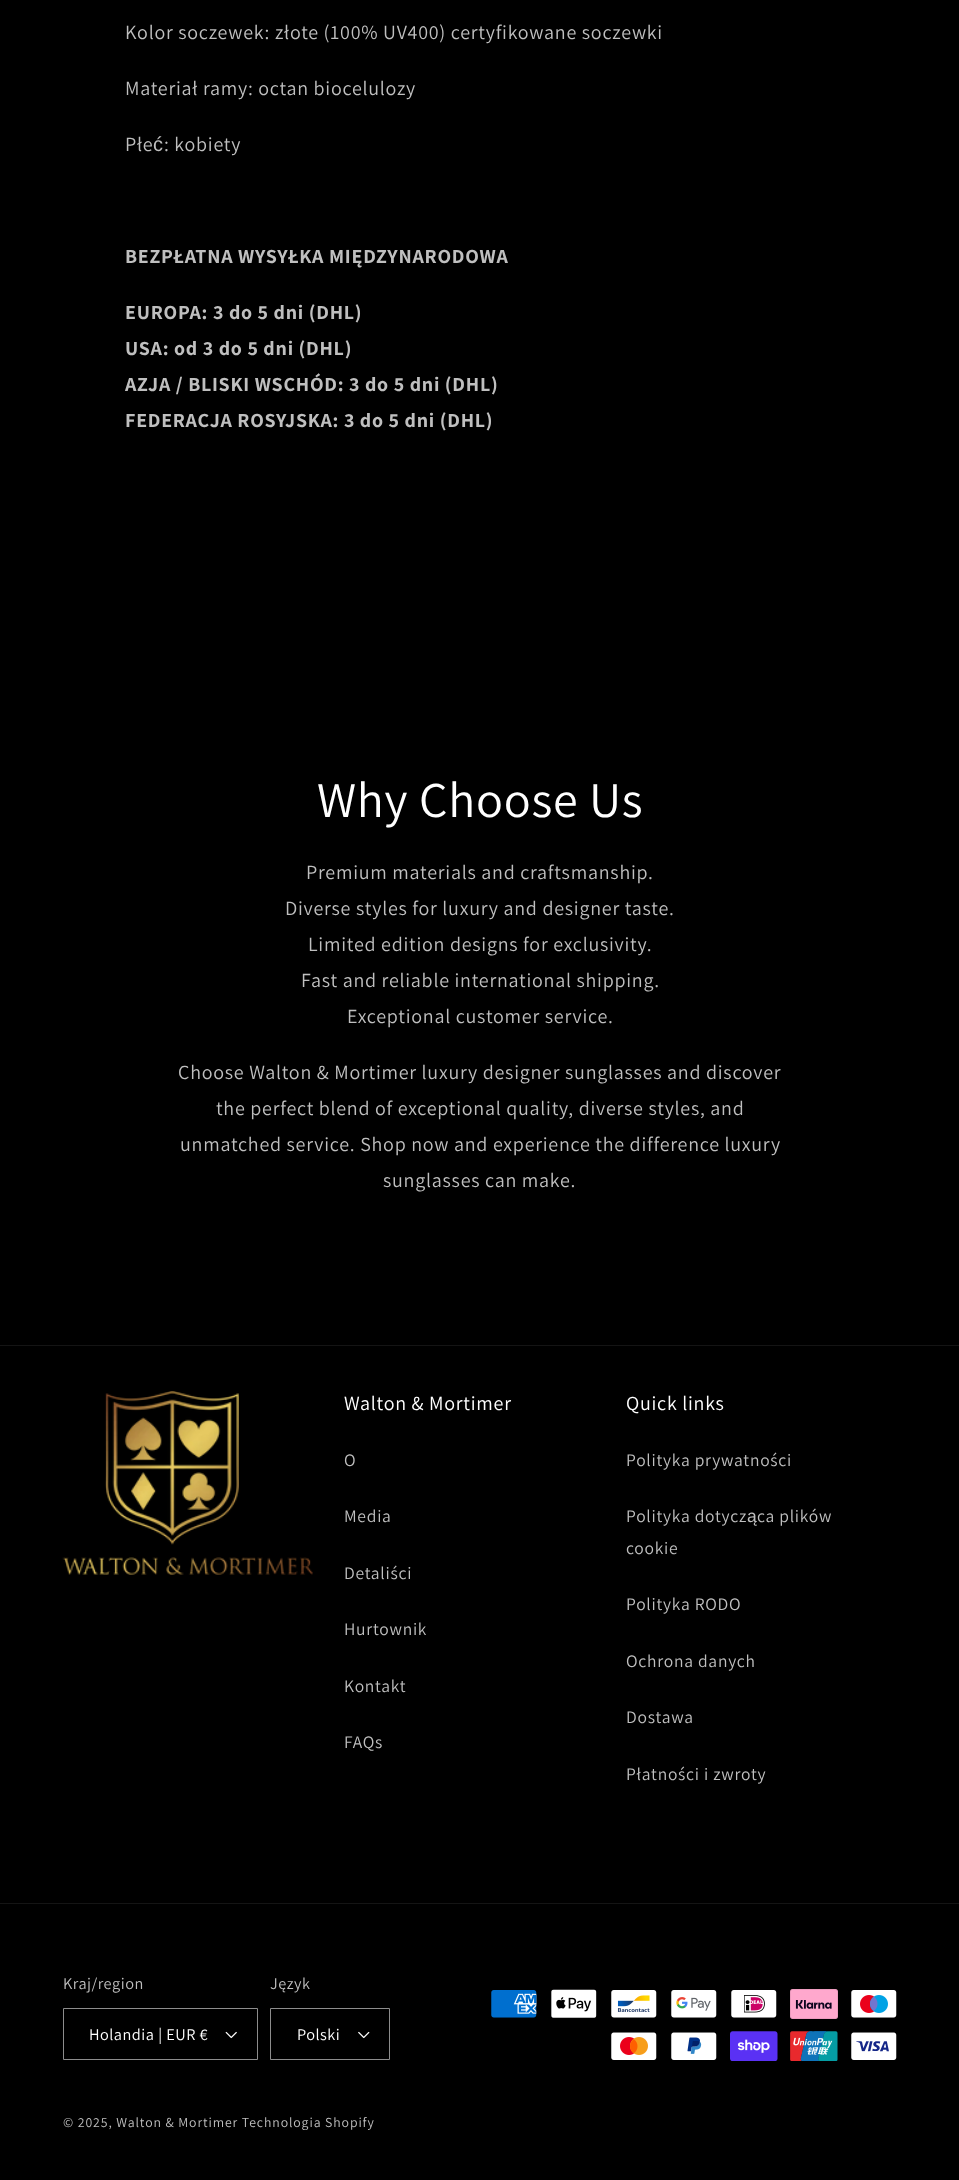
<svg xmlns="http://www.w3.org/2000/svg" width="959" height="2180">
<style>
.a{font:20px Assistant;letter-spacing:0.75px;fill:#bfbfbf}
.b{font:20px Liberation Sans;letter-spacing:0.75px;fill:#bfbfbf}
.c{font:bold 20px Assistant;letter-spacing:0.75px;fill:#bfbfbf}
.d{font:50px Assistant;letter-spacing:0.75px;fill:#fff}
.e{font:20px Assistant;letter-spacing:0.75px;fill:#fff}
.f{font:17.5px Assistant;letter-spacing:0.75px;fill:#bfbfbf}
.g{font:17.5px Liberation Sans;letter-spacing:0.75px;fill:#bfbfbf}
.h{font:16.25px Assistant;letter-spacing:0.5px;fill:#bfbfbf}
.i{font:16.25px Assistant;letter-spacing:0.5px;fill:#fff}
.j{font:13.75px Assistant;letter-spacing:0.9px;fill:#bfbfbf}
</style>
<rect width="100%" height="100%" fill="#000"/>
<path fill="#141414" d="M0 1345h959v1H0z"/>
<image href="1.png" x="62" y="1391" width="251" height="184"/>
<path fill="#141414" d="M0 1903h959v1H0z"/>
<image href="2.png" x="225" y="2031" width="12" height="8"/>
<path fill="none" stroke="#8c8c8c" d="M63.5 2008.5h194v51H63.5z"/>
<image href="3.png" x="358" y="2031" width="12" height="8"/>
<path fill="none" stroke="#8c8c8c" d="M270.5 2008.5h119v51H270.5z"/>
<image href="4.png" x="491" y="1990" width="46" height="28"/>
<image href="5.png" x="551" y="1989" width="46" height="29"/>
<image href="6.png" x="611" y="1990" width="46" height="28"/>
<image href="7.png" x="671" y="1990" width="46" height="28"/>
<image href="8.png" x="731" y="1990" width="46" height="28"/>
<image href="9.png" x="790" y="1989" width="48" height="30"/>
<image href="10.png" x="851" y="1990" width="46" height="28"/>
<image href="11.png" x="611" y="2032" width="46" height="28"/>
<image href="12.png" x="671" y="2032" width="46" height="28"/>
<image href="13.png" x="730" y="2031" width="48" height="30"/>
<image href="14.png" x="790" y="2031" width="48" height="30"/>
<image href="15.png" x="851" y="2032" width="46" height="28"/>
<text class="a" x="125" y="39">Kolor soczewek: złote (100% UV400) certyfikowane soczewki</text>
<text class="a" x="125" y="95">Materiał ramy: octan biocelulozy</text>
<text class="a" x="125" y="151">Płe</text>
<text class="b" x="153" y="151">ć</text>
<text class="a" x="164" y="151">: kobiety</text>
<text class="c" x="125" y="263">BEZPŁATNA WYSYŁKA MIĘDZYNARODOWA</text>
<text class="c" x="125" y="319">EUROPA: 3 do 5 dni (DHL)</text>
<text class="c" x="125" y="355">USA: od 3 do 5 dni (DHL)</text>
<text class="c" x="125" y="391">AZJA / BLISKI WSCHÓD: 3 do 5 dni (DHL)</text>
<text class="c" x="125" y="427">FEDERACJA ROSYJSKA: 3 do 5 dni (DHL)</text>
<text class="d" x="317" y="817">Why Choose Us</text>
<text class="a" x="306" y="879">Premium materials and craftsmanship.</text>
<text class="a" x="285" y="915">Diverse styles for luxury and designer taste.</text>
<text class="a" x="308" y="951">Limited edition designs for exclusivity.</text>
<text class="a" x="301" y="987">Fast and reliable international shipping.</text>
<text class="a" x="347" y="1023">Exceptional customer service.</text>
<text class="a" x="178" y="1079">Choose Walton &amp; Mortimer luxury designer sunglasses and discover</text>
<text class="a" x="216" y="1115">the perfect blend of exceptional quality, diverse styles, and</text>
<text class="a" x="180" y="1151">unmatched service. Shop now and experience the difference luxury</text>
<text class="a" x="383" y="1187">sunglasses can make.</text>
<text class="e" x="344" y="1410">Walton &amp; Mortimer</text>
<text class="f" x="344" y="1466">O</text>
<text class="f" x="344" y="1522">Media</text>
<text class="f" x="344" y="1579">Detaliści</text>
<text class="f" x="344" y="1635">Hurtownik</text>
<text class="f" x="344" y="1692">Kontakt</text>
<text class="f" x="344" y="1748">FAQs</text>
<text class="e" x="626" y="1410">Quick links</text>
<text class="f" x="626" y="1466">Polityka prywatności</text>
<text class="f" x="626" y="1522">Polityka dotycz</text>
<text class="g" x="747" y="1522">ą</text>
<text class="f" x="757" y="1522">ca plików</text>
<text class="f" x="626" y="1554">cookie</text>
<text class="f" x="626" y="1610">Polityka RODO</text>
<text class="f" x="626" y="1667">Ochrona danych</text>
<text class="f" x="626" y="1723">Dostawa</text>
<text class="f" x="626" y="1780">Płatności i zwroty</text>
<text class="h" x="63" y="1989">Kraj/region</text>
<text class="i" x="89" y="2040">Holandia | EUR €</text>
<text class="h" x="270" y="1989">Język</text>
<text class="i" x="297" y="2040">Polski</text>
<text class="j" x="63" y="2127">© 2025, Walton &amp; Mortimer Technologia Shopify</text>
</svg>
